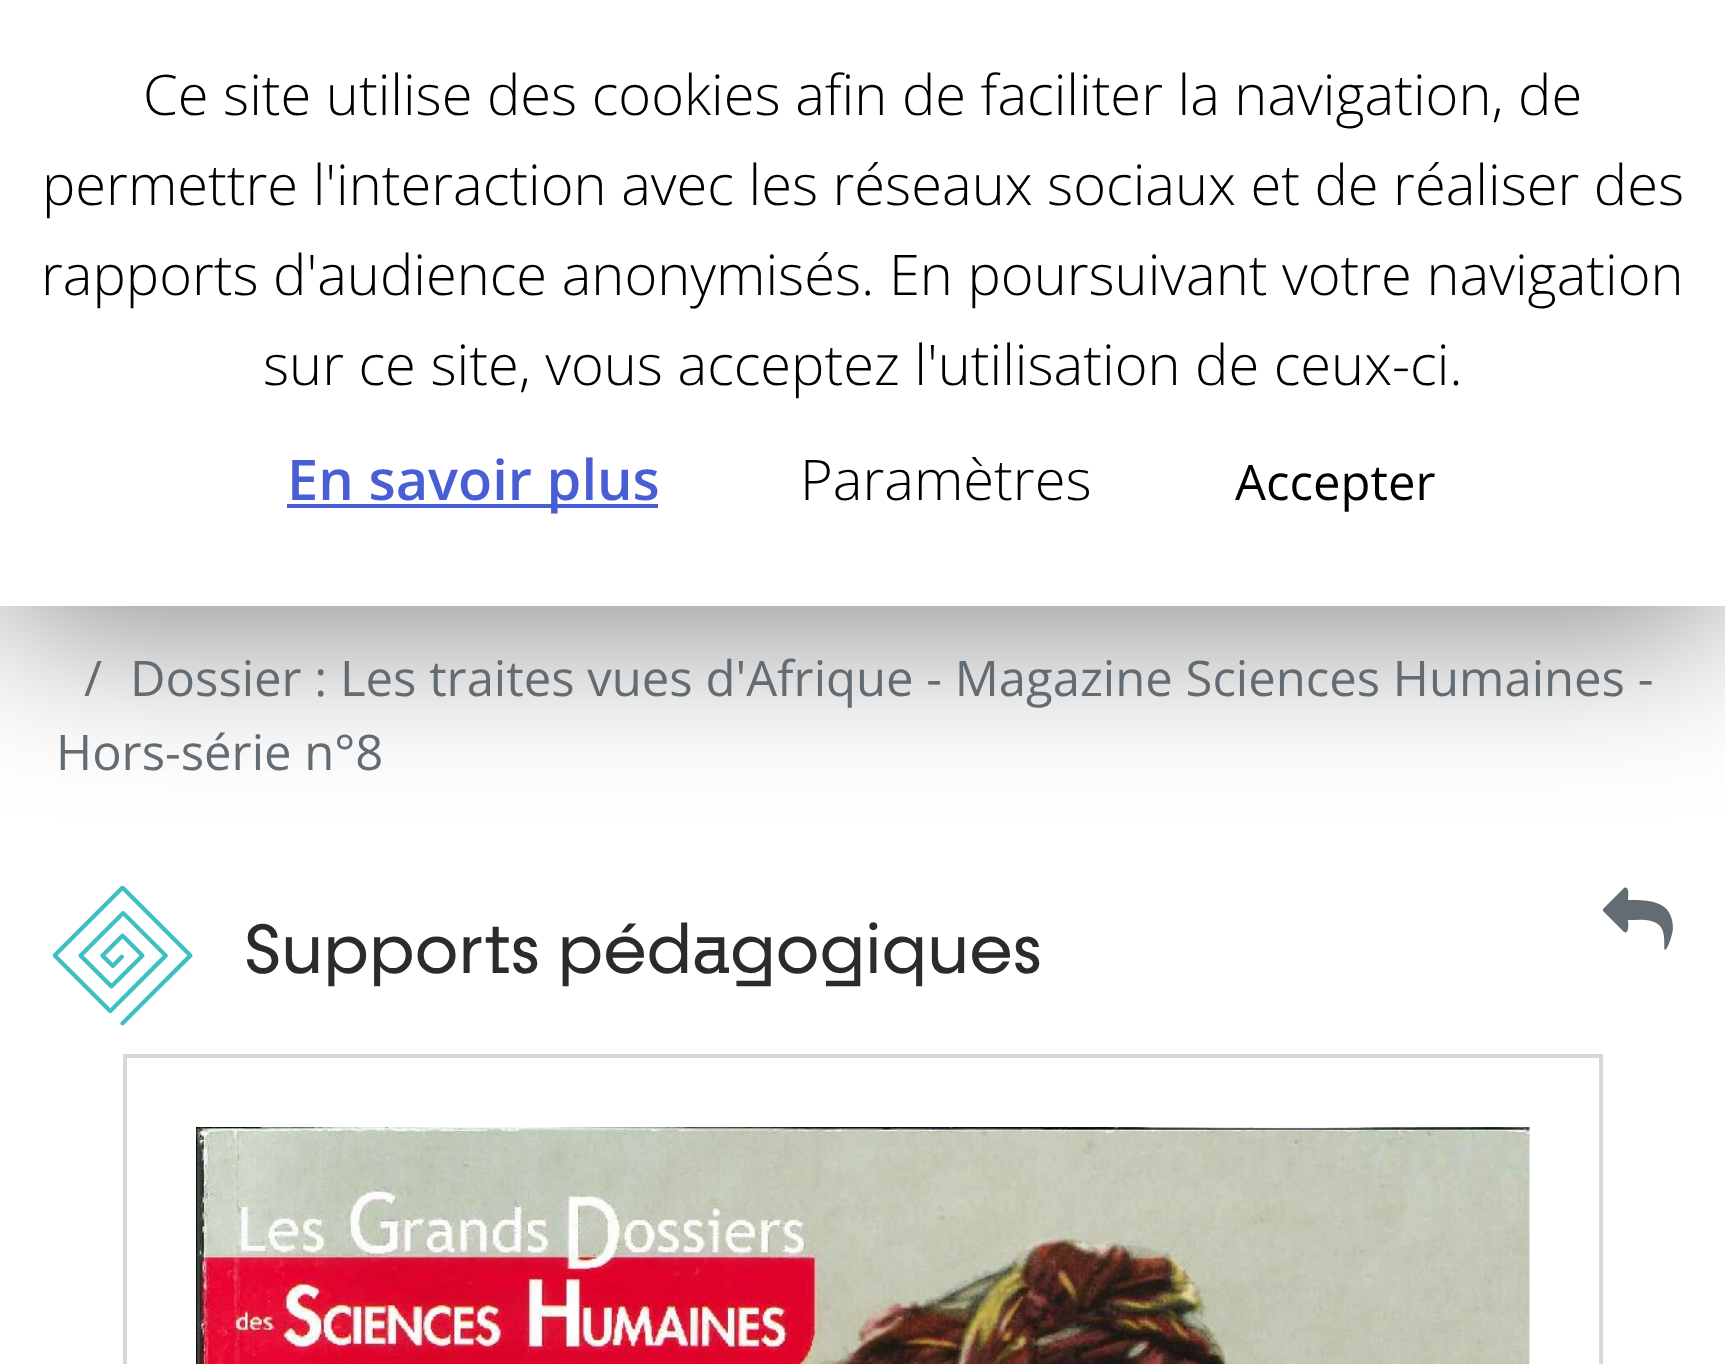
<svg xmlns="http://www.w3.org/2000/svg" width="1725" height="1364">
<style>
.a{font:300 56px Open Sans;fill:#000}
.b{font:600 56px Open Sans;fill:#495dd4}
.c{font:49px Open Sans;fill:#000}
.d{font:49px Open Sans;fill:#636c72}
.e{font:70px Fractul;fill:#292b2c}
</style>
<rect width="100%" height="100%" fill="#fff"/>
<image href="1.png" x="53" y="886" width="140" height="140"/>
<path fill="#00000080" filter="blur(87.5px)" d="M0 18h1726v605H0z"/>
<path fill="#fff" d="M0 0h1725v606H0z"/>
<path fill="#495dd4" d="M287 504h371v4H287z"/>
<path fill="#636c72" d="M1673 929l-1 5c-1 5-5 16-7 16c-2-1 2-18-6-25c-8-7-21-5-31-5c0 1 2 15-4 12l-21-21v-1v-1l21-21c6-3 4 11 4 12c23 0 45 1 45 29z"/>
<path fill="none" stroke="#d8d8d8" stroke-width="4" d="M125 1056h1476v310H125z"/>
<image href="2.png" x="196" y="1127" width="1334" height="237"/>
<text class="a" x="143" y="115">Ce site utilise des cookies afin de faciliter la navigation, de</text>
<text class="a" x="42" y="205">permettre l'interaction avec les réseaux sociaux et de réaliser des</text>
<text class="a" x="41" y="295">rapports d'audience anonymisés. En poursuivant votre navigation</text>
<text class="a" x="263" y="385">sur ce site, vous acceptez l'utilisation de ceux-ci.</text>
<text class="b" x="287" y="500">En savoir plus</text>
<text class="a" x="800" y="500">Paramètres</text>
<text class="c" x="1235" y="500">Accepter</text>
<text class="d" x="84" y="696">/</text>
<text class="d" x="130" y="696">Dossier : Les traites vues d'Afrique - Magazine Sciences Humaines -</text>
<text class="d" x="56" y="770">Hors-série n°8</text>
<text class="e" x="244" y="973">Supports pédagogiques</text>
</svg>
